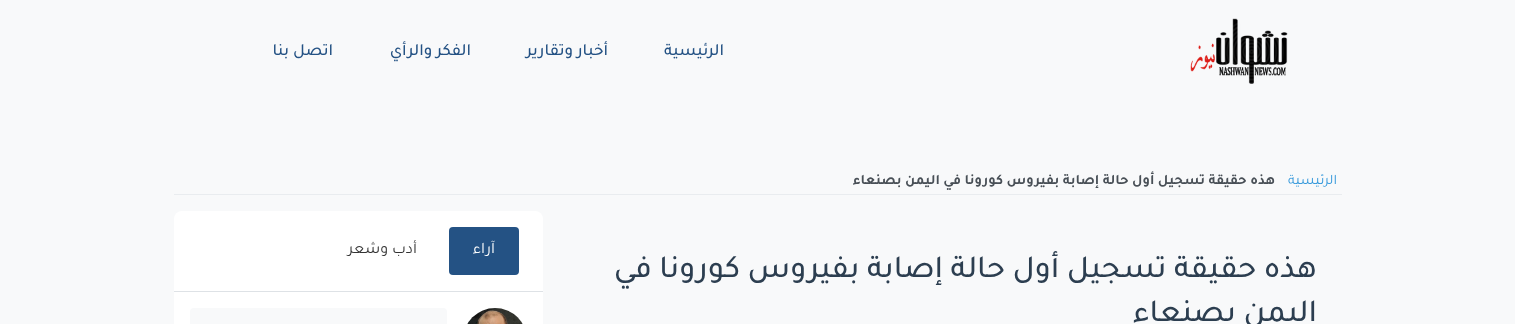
<svg xmlns="http://www.w3.org/2000/svg" width="1515" height="324">
<style>
.a{font:500 17px Tajawal;direction:rtl;fill:#245284}
.b{font:14.4px Tajawal;direction:rtl;fill:#3498db}
.c{font:bold 14.4px Tajawal;direction:rtl;fill:#495057}
.d{font:16px Tajawal;direction:rtl;fill:#fff}
.e{font:16px Tajawal;direction:rtl;fill:#333}
.f{font:500 32px Tajawal;direction:rtl;fill:#2c3e50}
</style>
<rect width="100%" height="100%" fill="#f8f9fa"/>
<image href="1.png" x="1190" y="18" width="98" height="66"/>
<path fill="#e9ecef" d="M174 194h1168v1H174z"/>
<rect fill="#fff" x="174" y="211" width="369" height="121" rx="8"/>
<path fill="#dee2e6" d="M174 291h369v1H174z"/>
<rect fill="#245284" x="449" y="227" width="70" height="48" rx="4"/>
<image href="2.png" x="467" y="308" width="56" height="16"/>
<rect fill="#f8f9fa" x="190" y="308" width="257" height="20" rx="4"/>
<text class="a" x="724" y="55">الرئيسية</text>
<text class="a" x="608" y="55">أخبار وتقارير</text>
<text class="a" x="471" y="55">الفكر والرأي</text>
<text class="a" x="333" y="55">اتصل بنا</text>
<text class="b" x="1337" y="184">الرئيسية</text>
<text class="c" x="1275" y="184">هذه حقيقة تسجيل أول حالة إصابة بفيروس كورونا في اليمن بصنعاء</text>
<text class="d" x="495" y="253">آراء</text>
<text class="e" x="417" y="253">أدب وشعر</text>
<text class="f" x="1317" y="277">هذه حقيقة تسجيل أول حالة إصابة بفيروس كورونا في</text>
<text class="f" x="1317" y="321">اليمن بصنعاء</text>
</svg>
